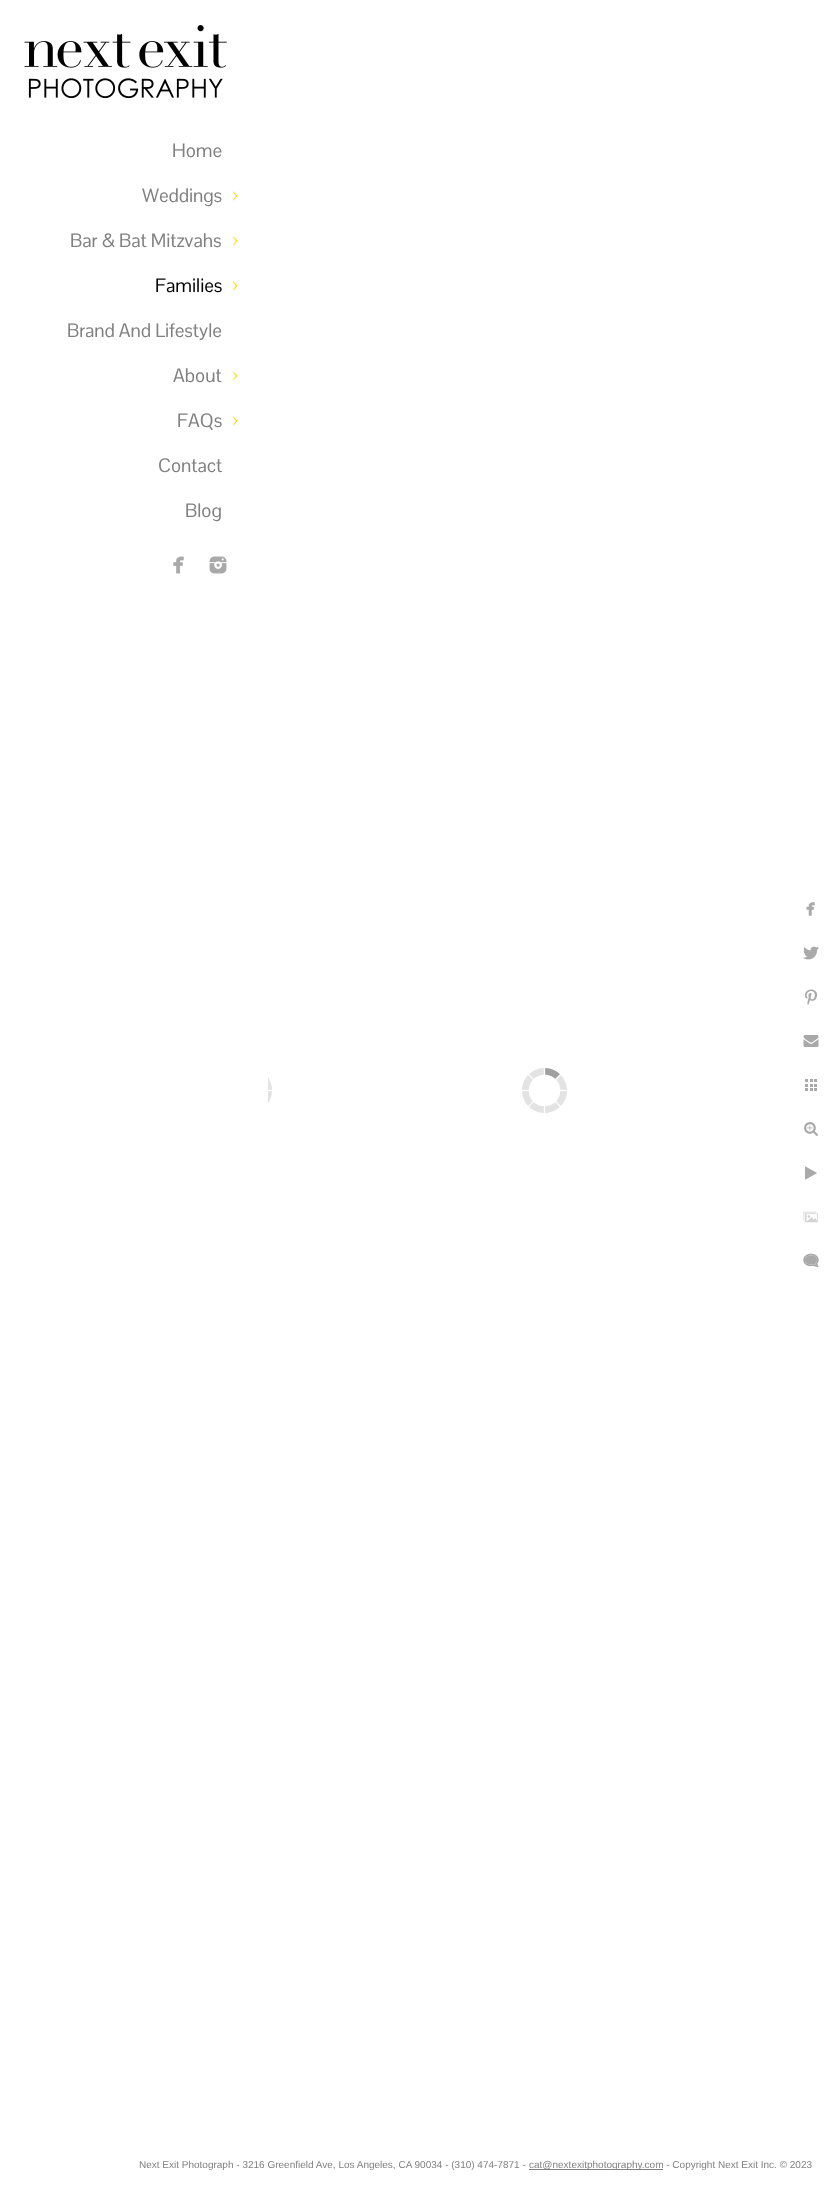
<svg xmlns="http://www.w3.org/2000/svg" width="838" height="2190">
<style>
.a{font:19px Pontano Sans;fill:#808080}
.b{font:19px Pontano Sans;fill:#000}
.c{font:10px Liberation Sans;fill:#808080}
</style>
<rect width="100%" height="100%" fill="#fff"/>
<image href="1.png" x="24" y="25" width="203" height="74"/>
<image href="2.png" x="232" y="191" width="6" height="10"/>
<image href="2.png" x="232" y="236" width="6" height="10"/>
<image href="2.png" x="232" y="281" width="6" height="10"/>
<image href="2.png" x="232" y="371" width="6" height="10"/>
<image href="2.png" x="232" y="416" width="6" height="10"/>
<image href="3.png" x="173" y="556" width="11" height="18"/>
<image href="4.png" x="209" y="556" width="18" height="18"/>
<image href="5.png" x="268" y="1078" width="4" height="25"/>
<image href="6.png" x="522" y="1068" width="45" height="45"/>
<image href="7.png" x="806" y="902" width="9" height="14"/>
<image href="8.png" x="803" y="946" width="16" height="14"/>
<image href="9.png" x="805" y="989" width="12" height="16"/>
<image href="10.png" x="803" y="1035" width="16" height="12"/>
<image href="11.png" x="805" y="1079" width="12" height="12"/>
<image href="12.png" x="804" y="1122" width="14" height="14"/>
<image href="13.png" x="805" y="1166" width="12" height="14"/>
<image href="14.png" x="803" y="1211" width="15" height="12"/>
<image href="15.png" x="803" y="1253" width="16" height="15"/>
<path fill="#808080" d="M529 2169h134v1H529z"/>
<text class="a" x="172" y="157">Home</text>
<text class="a" x="142" y="202">Weddings</text>
<text class="a" x="70" y="247">Bar &amp; Bat Mitzvahs</text>
<text class="b" x="155" y="292">Families</text>
<text class="a" x="67" y="337">Brand And Lifestyle</text>
<text class="a" x="173" y="382">About</text>
<text class="a" x="177" y="427">FAQs</text>
<text class="a" x="158" y="472">Contact</text>
<text class="a" x="185" y="517">Blog</text>
<text class="c" x="139" y="2168">Next Exit Photograph - 3216 Greenfield Ave, Los Angeles, CA 90034 - (310) 474-7871 -</text>
<text class="c" x="529" y="2168">cat@nextexitphotography.com - Copyright Next Exit Inc. © 2023</text>
</svg>
